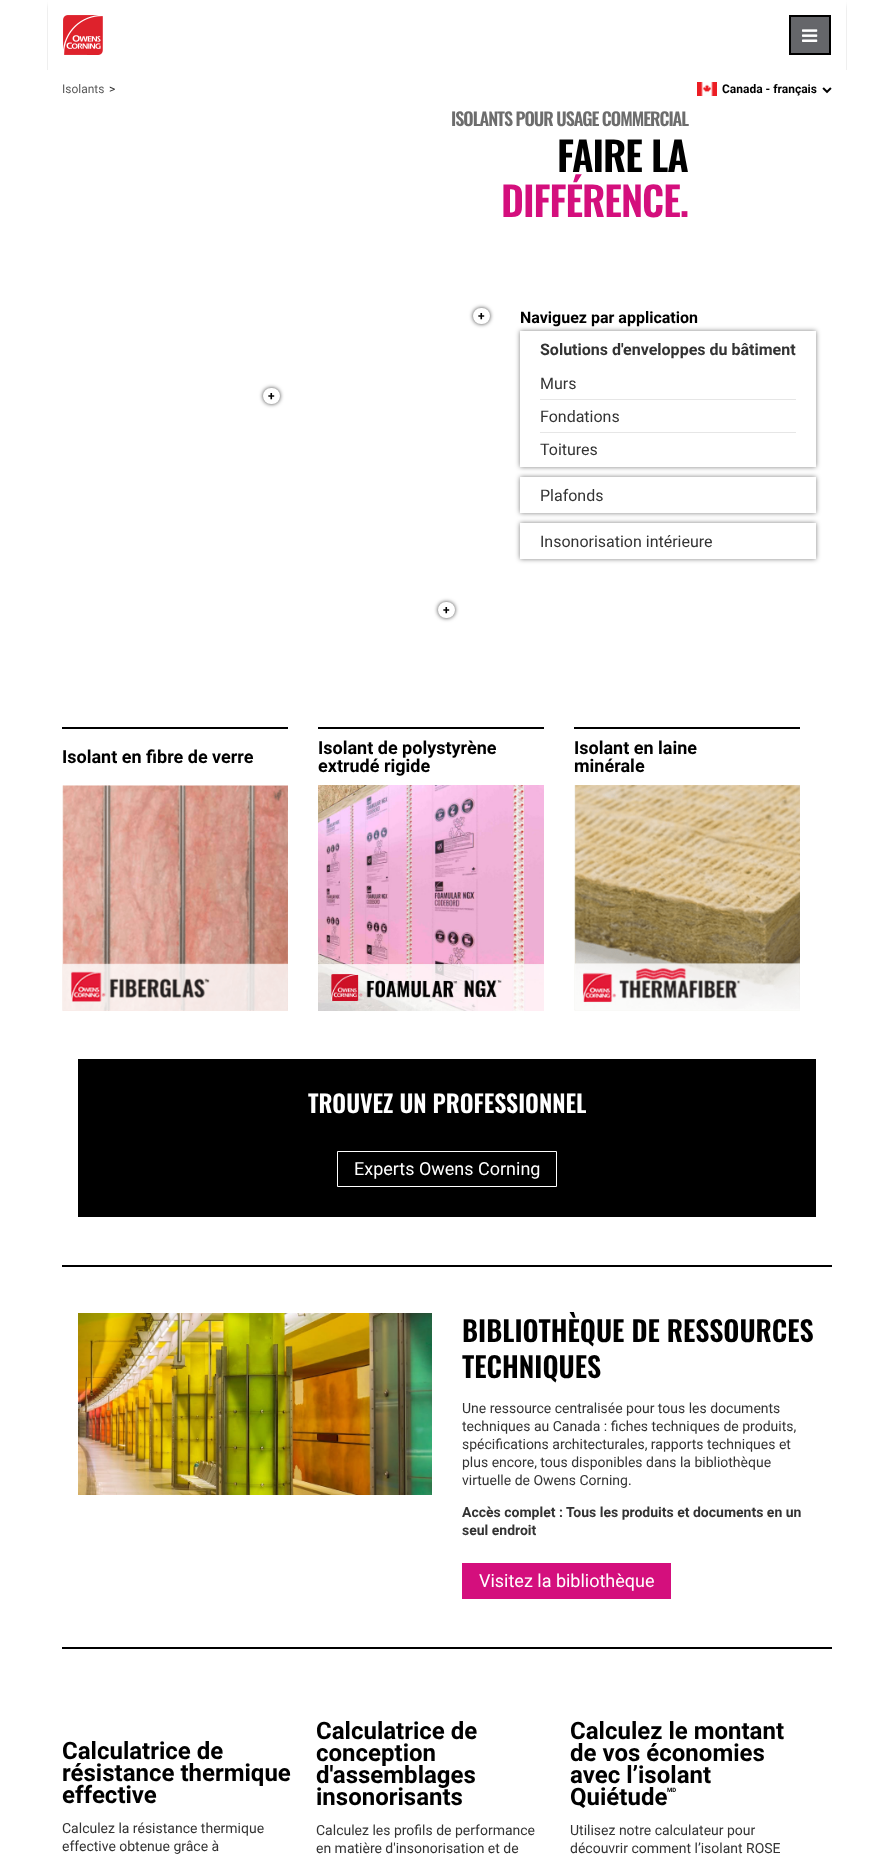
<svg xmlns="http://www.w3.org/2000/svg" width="894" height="1859">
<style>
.a{font:12px Roboto;fill:#585858}
.b{font:12px Roboto;fill:#333}
.c{font:bold 12px Roboto;fill:#000}
.d{font:600 18px Oswald;letter-spacing:-1px;fill:#6d6d6d}
.e{font:600 40px Oswald;letter-spacing:-1px;fill:#000}
.f{font:600 40px Oswald;letter-spacing:-1px;fill:#d40f7d}
.g{font:bold 16px Roboto;fill:#000}
.h{font:bold 16px Roboto;fill:#333}
.i{font:16px Roboto;fill:#333}
.j{font:bold 18px Roboto;fill:#000}
.k{font:600 24px Oswald;fill:#fff}
.l{font:18px Roboto;fill:#fff}
.m{font:600 28px Oswald;fill:#000}
.n{font:14px Roboto;fill:#333}
.o{font:bold 14px Roboto;fill:#333}
.p{font:bold 24px Roboto;fill:#000}
.q{font:bold 6px Roboto;fill:#000}
</style>
<defs>
<clipPath id="clip1"><path d="M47 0h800v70H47z"/></clipPath>
<clipPath id="clip2"><path d="M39 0h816v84h-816zm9 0h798v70h-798z" clip-rule="evenodd"/></clipPath>
<clipPath id="clip3"><path d="M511 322h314v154h-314zm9 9h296v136h-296z" clip-rule="evenodd"/></clipPath>
<clipPath id="clip4"><path d="M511 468h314v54h-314zm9 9h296v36h-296z" clip-rule="evenodd"/></clipPath>
<clipPath id="clip5"><path d="M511 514h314v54h-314zm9 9h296v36h-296z" clip-rule="evenodd"/></clipPath>
</defs>
<rect width="100%" height="100%" fill="#fff"/>
<g clip-path="url(#clip1)">
<g clip-path="url(#clip2)">
<path fill="#00000026" filter="blur(2.5px)" d="M48 5h798v70H48z"/>
</g>
</g>
<image href="1.png" x="63" y="15" width="40" height="40"/>
<path fill="#65666a" stroke="#000" stroke-width="2" d="M790 16h40v38H790z"/>
<image href="2.png" x="802" y="29" width="16" height="13"/>
<image href="3.png" x="697" y="82" width="20" height="14"/>
<image href="4.png" x="822" y="87" width="10" height="7"/>
<rect fill="#000000bf" filter="blur(2px)" x="473" y="308" width="17" height="16" rx="8"/>
<rect fill="#fff" stroke="#fff" stroke-width="2" x="474" y="309" width="15" height="14" rx="7"/>
<g clip-path="url(#clip3)">
<path fill="#00000080" filter="blur(2.5px)" d="M520 331h296v136H520z"/>
</g>
<path fill="#e6e6e6" d="M540 399h256v1H540z"/>
<path fill="#e6e6e6" d="M540 432h256v1H540z"/>
<g clip-path="url(#clip4)">
<path fill="#00000080" filter="blur(2.5px)" d="M520 477h296v36H520z"/>
</g>
<g clip-path="url(#clip5)">
<path fill="#00000080" filter="blur(2.5px)" d="M520 523h296v36H520z"/>
</g>
<rect fill="#000000bf" filter="blur(2px)" x="263" y="388" width="17" height="16" rx="8"/>
<rect fill="#fff" stroke="#fff" stroke-width="2" x="264" y="389" width="15" height="14" rx="7"/>
<rect fill="#000000bf" filter="blur(2px)" x="438" y="602" width="17" height="16" rx="8"/>
<rect fill="#fff" stroke="#fff" stroke-width="2" x="439" y="603" width="15" height="14" rx="7"/>
<path fill="#000" d="M62 727h226v2H62z"/>
<image href="5.png" x="62" y="785" width="226" height="226"/>
<path fill="#000" d="M318 727h226v2H318z"/>
<image href="6.png" x="318" y="785" width="226" height="226"/>
<path fill="#000" d="M574 727h226v2H574z"/>
<image href="7.png" x="574" y="785" width="226" height="226"/>
<path fill="#000" d="M78 1059h738v158H78z"/>
<path fill="none" stroke="#fff" d="M337.5 1151.5h219v35H337.5z"/>
<path fill="#000" d="M62 1265h770v2H62z"/>
<image href="8.png" x="78" y="1313" width="354" height="182"/>
<path fill="#d40f7d" d="M462 1563h209v36H462z"/>
<path fill="#000" d="M62 1647h770v2H62z"/>
<text class="a" x="62" y="93">Isolants</text>
<text class="b" x="109" y="93">&gt;</text>
<text class="c" x="722" y="93">Canada - français</text>
<text class="d" x="451" y="126">ISOLANTS POUR USAGE COMMERCIAL</text>
<text class="e" x="557" y="172">FAIRE LA</text>
<text class="f" x="501" y="217">DIFFÉRENCE.</text>
<text class="c" x="478" y="320">+</text>
<text class="g" x="520" y="323">Naviguez par application</text>
<text class="h" x="540" y="355">Solutions d'enveloppes du bâtiment</text>
<text class="i" x="540" y="389">Murs</text>
<text class="i" x="540" y="422">Fondations</text>
<text class="i" x="540" y="455">Toitures</text>
<text class="i" x="540" y="501">Plafonds</text>
<text class="i" x="540" y="547">Insonorisation intérieure</text>
<text class="c" x="268" y="400">+</text>
<text class="c" x="443" y="614">+</text>
<text class="j" x="62" y="763">Isolant en fibre de verre</text>
<text class="j" x="318" y="754">Isolant de polystyrène</text>
<text class="j" x="318" y="772">extrudé rigide</text>
<text class="j" x="574" y="754">Isolant en laine</text>
<text class="j" x="574" y="772">minérale</text>
<text class="k" x="308" y="1113">TROUVEZ UN PROFESSIONNEL</text>
<text class="l" x="354" y="1175">Experts Owens Corning</text>
<text class="m" x="462" y="1342">BIBLIOTHÈQUE DE RESSOURCES</text>
<text class="m" x="462" y="1378">TECHNIQUES</text>
<text class="n" x="462" y="1413">Une ressource centralisée pour tous les documents</text>
<text class="n" x="462" y="1431">techniques au Canada : fiches techniques de produits,</text>
<text class="n" x="462" y="1449">spécifications architecturales, rapports techniques et</text>
<text class="n" x="462" y="1467">plus encore, tous disponibles dans la bibliothèque</text>
<text class="n" x="462" y="1485">virtuelle de Owens Corning.</text>
<text class="o" x="462" y="1517">Accès complet : Tous les produits et documents en un</text>
<text class="o" x="462" y="1535">seul endroit</text>
<text class="l" x="479" y="1587">Visitez la bibliothèque</text>
<text class="p" x="62" y="1759">Calculatrice de</text>
<text class="p" x="62" y="1781">résistance thermique</text>
<text class="p" x="62" y="1803">effective</text>
<text class="n" x="62" y="1833">Calculez la résistance thermique</text>
<text class="n" x="62" y="1851">effective obtenue grâce à</text>
<text class="p" x="316" y="1739">Calculatrice de</text>
<text class="p" x="316" y="1761">conception</text>
<text class="p" x="316" y="1783">d'assemblages</text>
<text class="p" x="316" y="1805">insonorisants</text>
<text class="n" x="316" y="1835">Calculez les profils de performance</text>
<text class="n" x="316" y="1853">en matière d'insonorisation et de</text>
<text class="p" x="570" y="1739">Calculez le montant</text>
<text class="p" x="570" y="1761">de vos économies</text>
<text class="p" x="570" y="1783">avec l’isolant</text>
<text class="p" x="570" y="1805">Quiétude</text>
<text class="q" x="667" y="1792">MD</text>
<text class="n" x="570" y="1835">Utilisez notre calculateur pour</text>
<text class="n" x="570" y="1853">découvrir comment l’isolant ROSE</text>
</svg>
